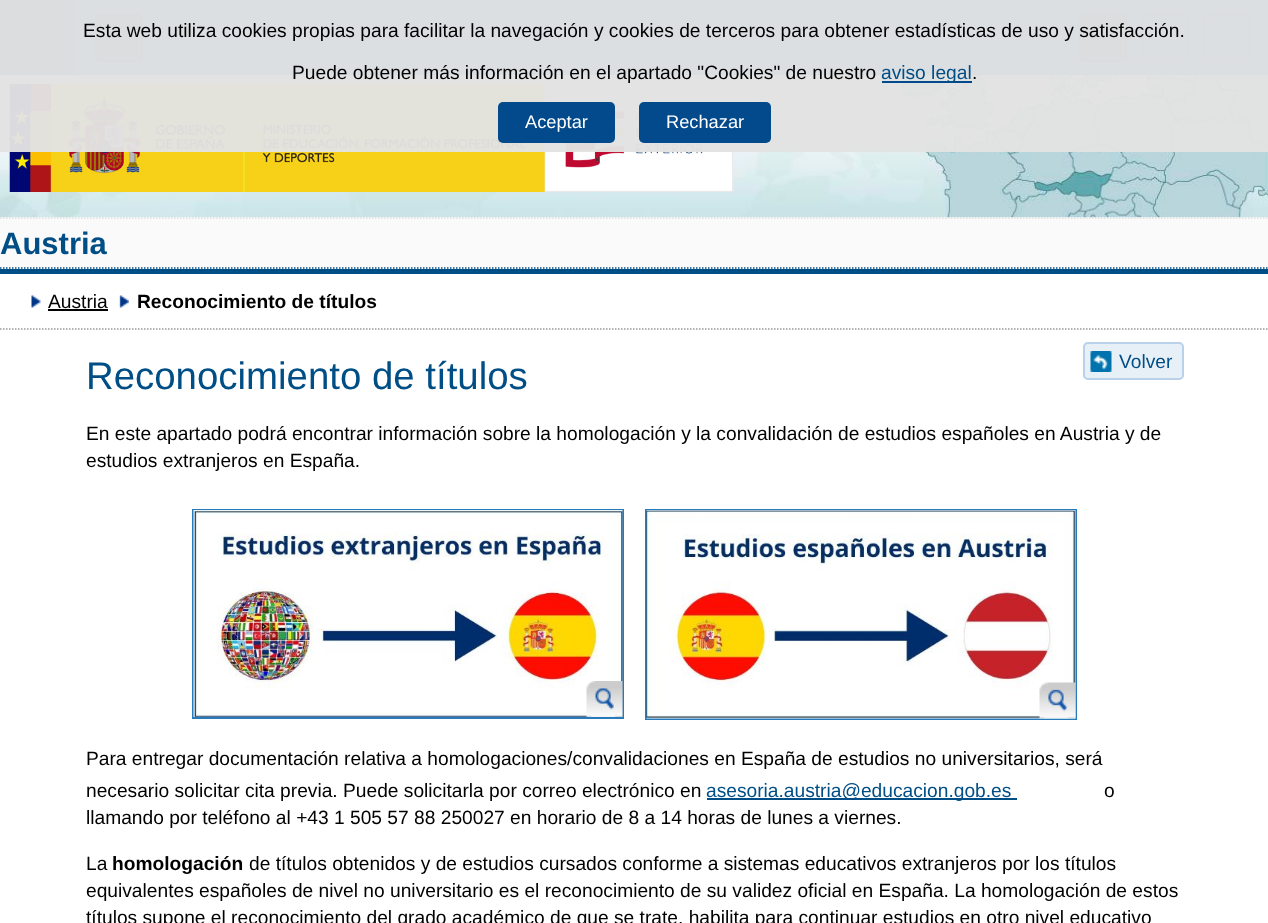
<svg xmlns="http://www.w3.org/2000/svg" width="1268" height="923">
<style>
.a{font:19.2px Liberation Sans;fill:#000}
.b{font:19.2px Liberation Sans;fill:#004e86}
.c{font:18.25px Liberation Sans;fill:#fff}
.d{font:bold 31px Liberation Sans;fill:#004e86}
.e{font:bold 19.2px Liberation Sans;fill:#000}
.f{font:38.4px Liberation Sans;fill:#004e86}
</style>
<rect width="100%" height="100%" fill="#fff"/>
<path fill="#277bba" d="M75 0h1193v75H75z"/>
<path fill="#003f6d" d="M0 0h75v75H0z"/>
<rect fill="#003f6d" stroke="#00243e" stroke-width="2" x="96" y="15" width="46" height="46" rx="4"/>
<rect fill="none" stroke="#00243e" stroke-width="2" x="1080" y="15" width="46" height="46" rx="4"/>
<path fill="#003f6d" d="M1080 15h45v45H1080z"/>
<rect fill="none" stroke="#003f6d" stroke-width="2" x="1143" y="15" width="46" height="46" rx="4"/>
<rect fill="none" stroke="#003f6d" stroke-width="2" x="1204" y="15" width="46" height="46" rx="7"/>
<image href="1.png" x="0" y="75" width="1268" height="143"/>
<image href="2.png" x="9" y="84" width="725" height="108"/>
<path fill="#e2e2e2f7" d="M0 0h1268v152H0z"/>
<path fill="#024a8b" d="M882 81h90v2H882z"/>
<rect fill="#024a8b" x="498" y="102" width="117" height="41" rx="5"/>
<rect fill="#024a8b" x="639" y="102" width="132" height="41" rx="5"/>
<path fill="#004e86" d="M0 269h1268v5H0z"/>
<path fill="#fafafa" d="M0 218h1268v51H0z"/>
<path fill="none" stroke="#ddd" stroke-width="1.5" stroke-dasharray="1.5 1.5" d="M0 218h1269"/>
<path fill="none" stroke="#004e86" stroke-width="1.5" stroke-dasharray="1.5 1.5" d="M0 268h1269"/>
<path fill="none" stroke="#999" stroke-width="1.5" stroke-dasharray="1.5 1.5" d="M0 329h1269"/>
<image href="3.png" x="31" y="295" width="10" height="13"/>
<path fill="#000" d="M48 309h60v2H48z"/>
<image href="4.png" x="119" y="295" width="10" height="13"/>
<rect fill="#e8f0f7" x="1083" y="342" width="101" height="38" rx="5"/>
<image href="5.png" x="1090" y="351" width="22" height="21"/>
<rect fill="none" stroke="#b9d2ea" stroke-width="2" x="1084" y="343" width="99" height="36" rx="4"/>
<path fill="none" stroke="#277bba" stroke-width="2" d="M193 510h430v208H193z"/>
<image href="6.png" x="193" y="510" width="430" height="207"/>
<image href="7.png" x="586" y="681" width="37" height="36"/>
<path fill="none" stroke="#277bba" stroke-width="2" d="M646 510h430v209H646z"/>
<image href="8.png" x="646" y="510" width="430" height="209"/>
<image href="9.png" x="1039" y="682" width="37" height="37"/>
<path fill="#004e86" d="M707 798h310v2H707z"/>
<text class="a" x="83" y="37">Esta web utiliza cookies propias para facilitar la navegación y cookies de terceros para obtener estadísticas de uso y satisfacción.</text>
<text class="a" x="292" y="79">Puede obtener más información en el apartado "Cookies" de nuestro</text>
<text class="b" x="881" y="79">aviso legal</text>
<text class="a" x="972" y="79">.</text>
<text class="c" x="525" y="128">Aceptar</text>
<text class="c" x="666" y="128">Rechazar</text>
<text class="d" x="0" y="254">Austria</text>
<text class="a" x="48" y="308">Austria</text>
<text class="e" x="137" y="308">Reconocimiento de títulos</text>
<text class="f" x="86" y="389">Reconocimiento de títulos</text>
<text class="b" x="1119" y="368">Volver</text>
<text class="a" x="86" y="440">En este apartado podrá encontrar información sobre la homologación y la convalidación de estudios españoles en Austria y de</text>
<text class="a" x="86" y="467">estudios extranjeros en España.</text>
<text class="a" x="86" y="765">Para entregar documentación relativa a homologaciones/convalidaciones en España de estudios no universitarios, será</text>
<text class="a" x="86" y="797">necesario solicitar cita previa. Puede solicitarla por correo electrónico en</text>
<text class="b" x="706" y="797">asesoria.austria@educacion.gob.es</text>
<text class="a" x="1104" y="797">o</text>
<text class="a" x="86" y="824">llamando por teléfono al +43 1 505 57 88 250027 en horario de 8 a 14 horas de lunes a viernes.</text>
<text class="a" x="86" y="870">La</text>
<text class="e" x="112" y="870">homologación</text>
<text class="a" x="249" y="870">de títulos obtenidos y de estudios cursados conforme a sistemas educativos extranjeros por los títulos</text>
<text class="a" x="86" y="897">equivalentes españoles de nivel no universitario es el reconocimiento de su validez oficial en España. La homologación de estos</text>
<text class="a" x="86" y="924">títulos supone el reconocimiento del grado académico de que se trate, habilita para continuar estudios en otro nivel educativo</text>
</svg>
